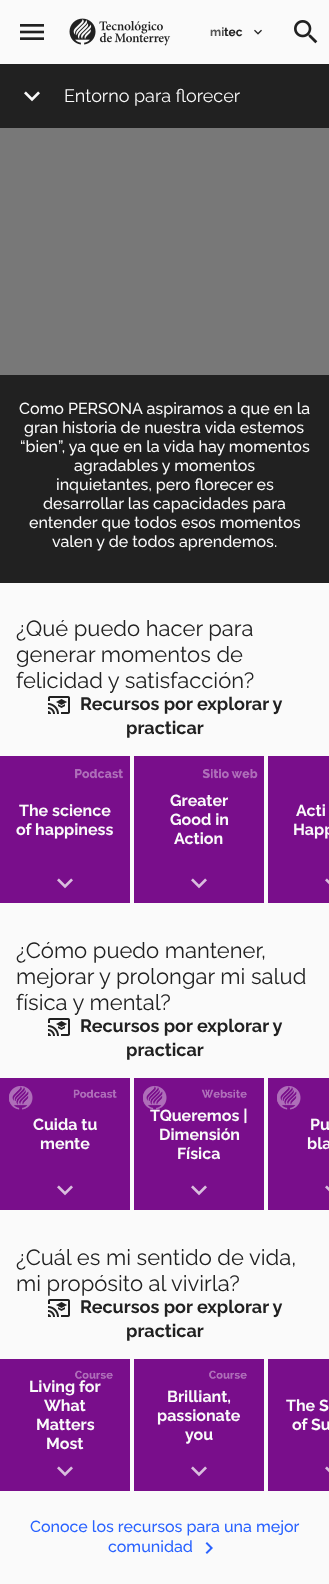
<svg xmlns="http://www.w3.org/2000/svg" width="329" height="1584">
<style>
.a{font:bold 12px Raleway;fill:#575757}
.b{font:bold 12px Raleway;fill:#212121}
.c{font:18px Raleway;fill:#fafafa}
.d{font:500 16px Raleway;fill:#fafafa}
.e{font:22px Raleway;fill:#212121}
.f{font:bold 18px Raleway;fill:#212121}
.g{font:bold 16px Raleway;fill:#fafafa}
.h{font:500 16px Raleway;fill:#2962ff}
</style>
<rect width="100%" height="100%" fill="#fafafa"/>
<image href="1.png" x="20" y="24" width="24" height="16"/>
<image href="2.png" x="69" y="18" width="102" height="28"/>
<image href="3.png" x="254" y="29" width="8" height="6"/>
<image href="4.png" x="294" y="20" width="24" height="24"/>
<path fill="#212121" d="M0 64h329v64H0z"/>
<image href="5.png" x="24" y="91" width="16" height="11"/>
<path fill="#787878" d="M0 128h329v247H0z"/>
<path fill="#212121" d="M0 375h329v208H0z"/>
<image href="6.png" x="48" y="696" width="22" height="18"/>
<path fill="#790e8b" d="M0 756h130v147H0z"/>
<image href="7.png" x="75" y="769" width="48" height="10"/>
<image href="8.png" x="57" y="878" width="16" height="11"/>
<path fill="#790e8b" d="M134 756h130v147H134z"/>
<image href="9.png" x="202" y="769" width="56" height="10"/>
<image href="8.png" x="191" y="878" width="16" height="11"/>
<path fill="#790e8b" d="M268 756h61v147H268z"/>
<image href="10.png" x="325" y="878" width="4" height="7"/>
<image href="6.png" x="48" y="1018" width="22" height="18"/>
<path fill="#790e8b" d="M0 1078h130v132H0z"/>
<image href="11.png" x="9" y="1086" width="108" height="24"/>
<image href="8.png" x="57" y="1185" width="16" height="11"/>
<path fill="#790e8b" d="M134 1078h130v132H134z"/>
<image href="12.png" x="143" y="1086" width="104" height="24"/>
<image href="8.png" x="191" y="1185" width="16" height="11"/>
<path fill="#790e8b" d="M268 1078h61v132H268z"/>
<image href="13.png" x="277" y="1086" width="24" height="24"/>
<image href="10.png" x="325" y="1185" width="4" height="7"/>
<image href="6.png" x="48" y="1299" width="22" height="18"/>
<path fill="#790e8b" d="M0 1359h130v132H0z"/>
<image href="14.png" x="75" y="1370" width="38" height="9"/>
<image href="8.png" x="57" y="1466" width="16" height="11"/>
<path fill="#790e8b" d="M134 1359h130v132H134z"/>
<image href="14.png" x="209" y="1370" width="38" height="9"/>
<image href="8.png" x="191" y="1466" width="16" height="11"/>
<path fill="#790e8b" d="M268 1359h61v132H268z"/>
<image href="10.png" x="325" y="1466" width="4" height="7"/>
<image href="15.png" x="205" y="1542" width="8" height="12"/>
<text class="a" x="210" y="36">mi</text>
<text class="b" x="224" y="36">tec</text>
<text class="c" x="64" y="102">Entorno para florecer</text>
<text class="d" x="19" y="414">Como PERSONA aspiramos a que en la</text>
<text class="d" x="24" y="433">gran historia de nuestra vida estemos</text>
<text class="d" x="20" y="452">“bien”, ya que en la vida hay momentos</text>
<text class="d" x="74" y="471">agradables y momentos</text>
<text class="d" x="56" y="490">inquietantes, pero florecer es</text>
<text class="d" x="43" y="509">desarrollar las capacidades para</text>
<text class="d" x="29" y="528">entender que todos esos momentos</text>
<text class="d" x="52" y="547">valen y de todos aprendemos.</text>
<text class="e" x="16" y="636">¿Qué puedo hacer para</text>
<text class="e" x="16" y="662">generar momentos de</text>
<text class="e" x="16" y="688">felicidad y satisfacción?</text>
<text class="f" x="80" y="710">Recursos por explorar y</text>
<text class="f" x="126" y="734">practicar</text>
<text class="g" x="19" y="816">The science</text>
<text class="g" x="16" y="835">of happiness</text>
<text class="g" x="170" y="806">Greater</text>
<text class="g" x="170" y="825">Good in</text>
<text class="g" x="174" y="844">Action</text>
<text class="g" x="296" y="816">Acti</text>
<text class="g" x="293" y="835">Happ</text>
<text class="e" x="16" y="958">¿Cómo puedo mantener,</text>
<text class="e" x="16" y="984">mejorar y prolongar mi salud</text>
<text class="e" x="16" y="1010">física y mental?</text>
<text class="f" x="80" y="1032">Recursos por explorar y</text>
<text class="f" x="126" y="1056">practicar</text>
<text class="g" x="33" y="1130">Cuida tu</text>
<text class="g" x="40" y="1149">mente</text>
<text class="g" x="150" y="1121">TQueremos |</text>
<text class="g" x="159" y="1140">Dimensión</text>
<text class="g" x="177" y="1159">Física</text>
<text class="g" x="310" y="1130">Pu</text>
<text class="g" x="307" y="1149">bla</text>
<text class="e" x="16" y="1265">¿Cuál es mi sentido de vida,</text>
<text class="e" x="16" y="1291">mi propósito al vivirla?</text>
<text class="f" x="80" y="1313">Recursos por explorar y</text>
<text class="f" x="126" y="1337">practicar</text>
<text class="g" x="29" y="1392">Living for</text>
<text class="g" x="44" y="1411">What</text>
<text class="g" x="36" y="1430">Matters</text>
<text class="g" x="46" y="1449">Most</text>
<text class="g" x="167" y="1402">Brilliant,</text>
<text class="g" x="157" y="1421">passionate</text>
<text class="g" x="185" y="1440">you</text>
<text class="g" x="286" y="1411">The S</text>
<text class="g" x="292" y="1430">of Su</text>
<text class="h" x="30" y="1532">Conoce los recursos para una mejor</text>
<text class="h" x="108" y="1552">comunidad</text>
</svg>
